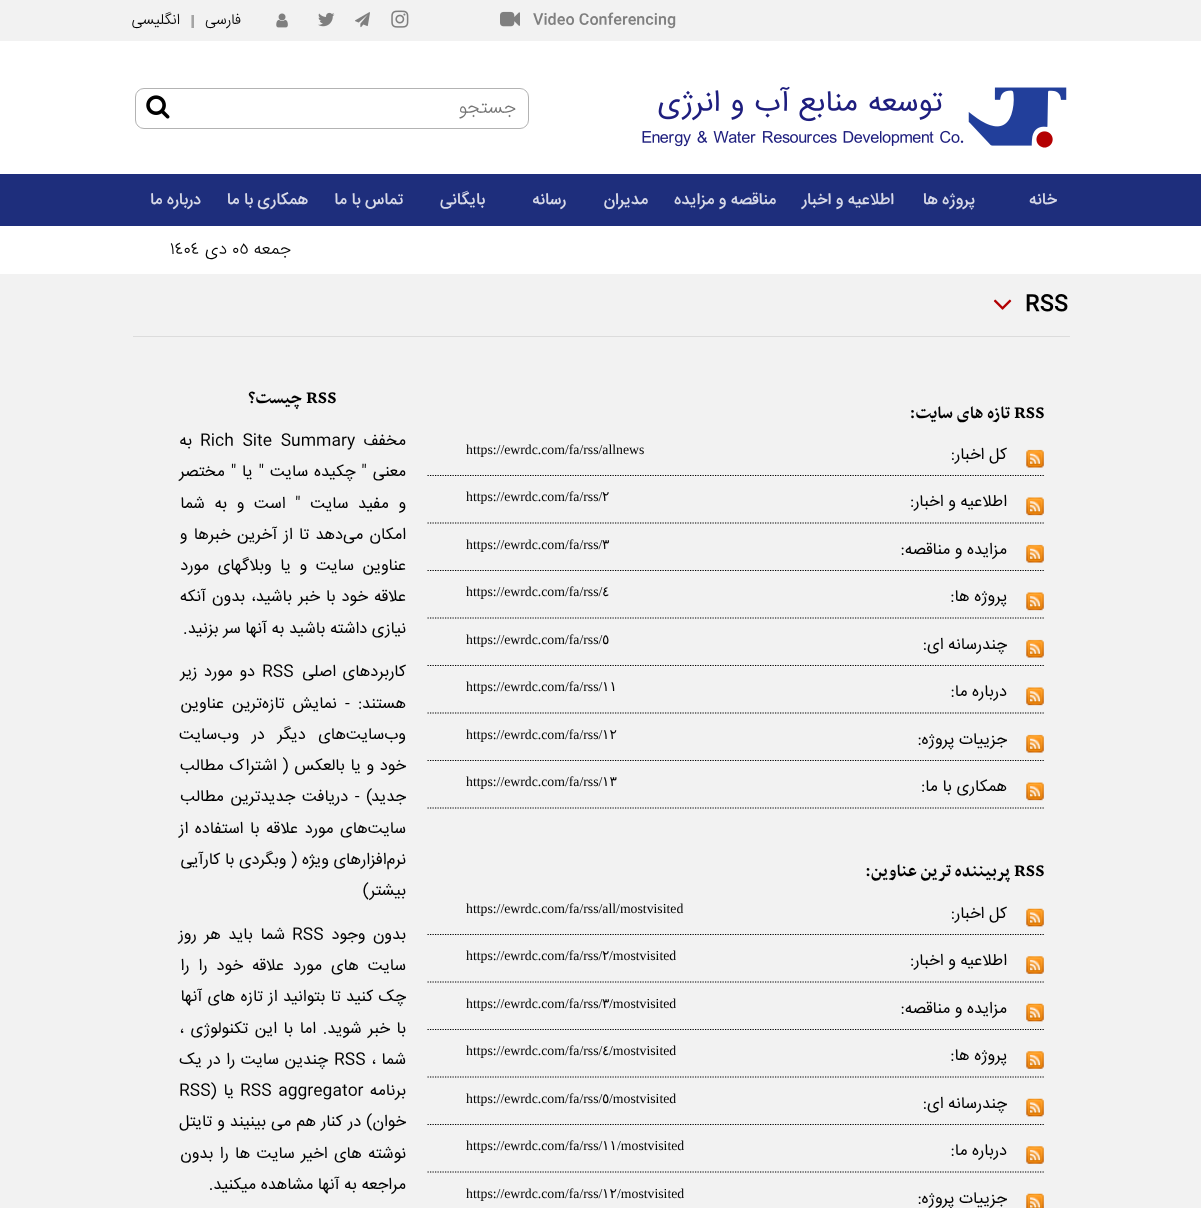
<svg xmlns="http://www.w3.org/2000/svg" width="1201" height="1208">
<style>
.a{font:500 15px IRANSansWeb;fill:#7f7f7f}
.b{font:300 15px IRANSansWeb;direction:rtl;fill:#000}
.c{font:300 19px IRANSansWeb;direction:rtl;fill:#757575}
.d{font:500 16.25px IRANSansWeb;direction:rtl;fill:#d7d9e8}
.e{font:300 17.5px IRANSansWeb;direction:rtl;fill:#000}
.f{font:300 17.5px IRANSansWeb;fill:#000}
.g{font:500 22px IRANSansWeb;fill:#000}
.h{font:bold 20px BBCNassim;fill:#000}
.i{font:bold 20px BBCNassim;direction:rtl;fill:#000}
.j{font:16.25px IRANSansWeb;direction:rtl;fill:#000}
.k{font:13.75px Liberation Serif;fill:#000}
.l{font:13.75px DejaVu Sans;fill:#000}
.m{font:16.25px IRANSansWeb;fill:#000}
</style>
<rect width="100%" height="100%" fill="#f2f2f2"/>
<image href="1.png" x="500" y="11" width="20" height="16"/>
<image href="2.png" x="391" y="10" width="18" height="18"/>
<image href="3.png" x="355" y="12" width="15" height="16"/>
<image href="4.png" x="318" y="12" width="17" height="15"/>
<image href="5.png" x="276" y="13" width="12" height="15"/>
<path fill="#a4a4a4" d="M192 15h2v13H192z"/>
<path fill="#c5c5c5" d="M191 15h1v13H191z"/>
<path fill="#fff" d="M0 41h1201v133H0z"/>
<image href="6.png" x="642" y="86" width="425" height="62"/>
<rect fill="none" stroke="#b3b3b3" x="135.5" y="88.5" width="393" height="40" rx="8.5"/>
<image href="7.png" x="146" y="95" width="24" height="24"/>
<path fill="#1e2e7c" d="M0 174h1201v52H0z"/>
<path fill="#fff" d="M0 226h1201v48H0z"/>
<path fill="#dcdcdc" d="M133 336h937v1H133z"/>
<image href="8.png" x="993" y="299" width="19" height="11"/>
<path fill="none" stroke="#000" stroke-width="1.2" stroke-dasharray="1.25 1.25" d="M427.5 475.5h617.5"/>
<image href="9.png" x="1026" y="449" width="18" height="19"/>
<path fill="none" stroke="#000" stroke-width="1.2" stroke-dasharray="1.25 1.25" d="M427.5 523h617.5"/>
<image href="10.png" x="1026" y="497" width="18" height="19"/>
<path fill="none" stroke="#000" stroke-width="1.2" stroke-dasharray="1.25 1.25" d="M427.5 570.5h617.5"/>
<image href="9.png" x="1026" y="544" width="18" height="19"/>
<path fill="none" stroke="#000" stroke-width="1.2" stroke-dasharray="1.25 1.25" d="M427.5 618h617.5"/>
<image href="10.png" x="1026" y="592" width="18" height="19"/>
<path fill="none" stroke="#000" stroke-width="1.2" stroke-dasharray="1.25 1.25" d="M427.5 665.5h617.5"/>
<image href="9.png" x="1026" y="639" width="18" height="19"/>
<path fill="none" stroke="#000" stroke-width="1.2" stroke-dasharray="1.25 1.25" d="M427.5 713h617.5"/>
<image href="10.png" x="1026" y="687" width="18" height="19"/>
<path fill="none" stroke="#000" stroke-width="1.2" stroke-dasharray="1.25 1.25" d="M427.5 760.5h617.5"/>
<image href="9.png" x="1026" y="734" width="18" height="19"/>
<path fill="none" stroke="#000" stroke-width="1.2" stroke-dasharray="1.25 1.25" d="M427.5 808h617.5"/>
<image href="11.png" x="1026" y="782" width="18" height="19"/>
<path fill="none" stroke="#000" stroke-width="1.2" stroke-dasharray="1.25 1.25" d="M427.5 934.5h617.5"/>
<image href="12.png" x="1026" y="908" width="18" height="19"/>
<path fill="none" stroke="#000" stroke-width="1.2" stroke-dasharray="1.25 1.25" d="M427.5 982h617.5"/>
<image href="13.png" x="1026" y="956" width="18" height="18"/>
<path fill="none" stroke="#000" stroke-width="1.2" stroke-dasharray="1.25 1.25" d="M427.5 1029.5h617.5"/>
<image href="12.png" x="1026" y="1003" width="18" height="19"/>
<path fill="none" stroke="#000" stroke-width="1.2" stroke-dasharray="1.25 1.25" d="M427.5 1077h617.5"/>
<image href="13.png" x="1026" y="1051" width="18" height="18"/>
<path fill="none" stroke="#000" stroke-width="1.2" stroke-dasharray="1.25 1.25" d="M427.5 1124.5h617.5"/>
<image href="12.png" x="1026" y="1098" width="18" height="19"/>
<path fill="none" stroke="#000" stroke-width="1.2" stroke-dasharray="1.25 1.25" d="M427.5 1172h617.5"/>
<image href="13.png" x="1026" y="1146" width="18" height="18"/>
<image href="14.png" x="1026" y="1193" width="18" height="15"/>
<text class="a" x="533" y="24">Video Conferencing</text>
<text class="b" x="241" y="24">فارسی</text>
<text class="b" x="180" y="24">انگلیسی</text>
<text class="c" x="516" y="113">جستجو</text>
<text class="d" x="1057" y="204">خانه</text>
<text class="d" x="975" y="204">پروژه ها</text>
<text class="d" x="894" y="204">اطلاعیه و اخبار</text>
<text class="d" x="776" y="204">مناقصه و مزایده</text>
<text class="d" x="648" y="204">مدیران</text>
<text class="d" x="566" y="204">رسانه</text>
<text class="d" x="485" y="204">بایگانی</text>
<text class="d" x="403" y="204">تماس با ما</text>
<text class="d" x="308" y="204">همکاری با ما</text>
<text class="d" x="201" y="204">درباره ما</text>
<text class="e" x="291" y="254">جمعه</text>
<text class="f" x="232" y="254">٠٥</text>
<text class="e" x="227" y="254">دی</text>
<text class="f" x="170" y="254">١٤٠٤</text>
<text class="g" x="1025" y="310">RSS</text>
<text class="h" x="1014" y="418">RSS</text>
<text class="i" x="1010" y="418">تازه های سایت:</text>
<text class="j" x="1007" y="459">کل اخبار:</text>
<text class="k" x="466" y="454">https://ewrdc.com/fa/rss/allnews</text>
<text class="j" x="1007" y="506">اطلاعیه و اخبار:</text>
<text class="l" x="602" y="501">٢</text>
<text class="k" x="466" y="501">https://ewrdc.com/fa/rss/</text>
<text class="j" x="1007" y="554">مزایده و مناقصه:</text>
<text class="l" x="602" y="549">٣</text>
<text class="k" x="466" y="549">https://ewrdc.com/fa/rss/</text>
<text class="j" x="1007" y="601">پروژه ها:</text>
<text class="l" x="602" y="596">٤</text>
<text class="k" x="466" y="596">https://ewrdc.com/fa/rss/</text>
<text class="j" x="1007" y="649">چندرسانه ای:</text>
<text class="l" x="602" y="644">٥</text>
<text class="k" x="466" y="644">https://ewrdc.com/fa/rss/</text>
<text class="j" x="1007" y="696">درباره ما:</text>
<text class="l" x="602" y="691">١١</text>
<text class="k" x="466" y="691">https://ewrdc.com/fa/rss/</text>
<text class="j" x="1007" y="744">جزییات پروژه:</text>
<text class="l" x="602" y="739">١٢</text>
<text class="k" x="466" y="739">https://ewrdc.com/fa/rss/</text>
<text class="j" x="1007" y="791">همکاری با ما:</text>
<text class="l" x="602" y="786">١٣</text>
<text class="k" x="466" y="786">https://ewrdc.com/fa/rss/</text>
<text class="h" x="1014" y="876">RSS</text>
<text class="i" x="1010" y="876">پربیننده ترین عناوین:</text>
<text class="j" x="1007" y="918">کل اخبار:</text>
<text class="k" x="466" y="913">https://ewrdc.com/fa/rss/all/mostvisited</text>
<text class="j" x="1007" y="965">اطلاعیه و اخبار:</text>
<text class="k" x="609" y="960">/mostvisited</text>
<text class="l" x="602" y="960">٢</text>
<text class="k" x="466" y="960">https://ewrdc.com/fa/rss/</text>
<text class="j" x="1007" y="1013">مزایده و مناقصه:</text>
<text class="k" x="609" y="1008">/mostvisited</text>
<text class="l" x="602" y="1008">٣</text>
<text class="k" x="466" y="1008">https://ewrdc.com/fa/rss/</text>
<text class="j" x="1007" y="1060">پروژه ها:</text>
<text class="k" x="609" y="1055">/mostvisited</text>
<text class="l" x="602" y="1055">٤</text>
<text class="k" x="466" y="1055">https://ewrdc.com/fa/rss/</text>
<text class="j" x="1007" y="1108">چندرسانه ای:</text>
<text class="k" x="609" y="1103">/mostvisited</text>
<text class="l" x="602" y="1103">٥</text>
<text class="k" x="466" y="1103">https://ewrdc.com/fa/rss/</text>
<text class="j" x="1007" y="1155">درباره ما:</text>
<text class="k" x="617" y="1150">/mostvisited</text>
<text class="l" x="602" y="1150">١١</text>
<text class="k" x="466" y="1150">https://ewrdc.com/fa/rss/</text>
<text class="j" x="1007" y="1203">جزییات پروژه:</text>
<text class="l" x="602" y="1198">١٢</text>
<text class="k" x="617" y="1198">/mostvisited</text>
<text class="k" x="466" y="1198">https://ewrdc.com/fa/rss/</text>
<text class="h" x="306" y="403">RSS</text>
<text class="i" x="302" y="403">چیست؟</text>
<text class="j" x="406" y="445">مخفف</text>
<text class="m" x="200" y="445" word-spacing="4">Rich Site Summary</text>
<text class="j" x="192" y="445">به</text>
<text class="j" x="406" y="476" word-spacing="1.25">معنی " چکیده سایت " یا " مختصر</text>
<text class="j" x="406" y="508" word-spacing="5">و مفید سایت " است و به شما</text>
<text class="j" x="406" y="539" word-spacing="1.75">امکان می‌دهد تا از آخرین خبرها و</text>
<text class="j" x="406" y="570" word-spacing="4">عناوین سایت و یا وبلاگهای مورد</text>
<text class="j" x="406" y="601" word-spacing="1.5">علاقه خود با خبر باشید، بدون آنکه</text>
<text class="j" x="406" y="633">نیازی داشته باشید به آنها سر بزنید.</text>
<text class="j" x="406" y="676" word-spacing="2">کاربردهای اصلی</text>
<text class="m" x="262" y="676">RSS</text>
<text class="j" x="255" y="676" word-spacing="2">دو مورد زیر</text>
<text class="j" x="406" y="708" word-spacing="3.5">هستند: - نمایش تازه‌ترین عناوین</text>
<text class="j" x="406" y="739" word-spacing="8">وب‌سایت‌های دیگر در وب‌سایت</text>
<text class="j" x="406" y="770" word-spacing="1">خود و یا بالعکس ( اشتراک مطالب</text>
<text class="j" x="406" y="801" word-spacing="2">جدید) - دریافت جدیدترین مطالب</text>
<text class="j" x="406" y="833" word-spacing="2">سایت‌های مورد علاقه با استفاده از</text>
<text class="j" x="406" y="864">نرم‌افزارهای ویژه ( وبگردی با کارآیی</text>
<text class="j" x="406" y="895">بیشتر)</text>
<text class="j" x="406" y="939" word-spacing="3">بدون وجود</text>
<text class="m" x="292" y="939">RSS</text>
<text class="j" x="285" y="939" word-spacing="3">شما باید هر روز</text>
<text class="j" x="406" y="970" word-spacing="4.5">سایت های مورد علاقه خود را را</text>
<text class="j" x="406" y="1001" word-spacing="0.75">چک کنید تا بتوانید از تازه های آنها</text>
<text class="j" x="406" y="1033" word-spacing="2">با خبر شوید. اما با این تکنولوژی ،</text>
<text class="j" x="406" y="1064" word-spacing="1">شما ،</text>
<text class="m" x="334" y="1064">RSS</text>
<text class="j" x="328" y="1064" word-spacing="1">چندین سایت را در یک</text>
<text class="j" x="406" y="1095">برنامه</text>
<text class="m" x="240" y="1095" word-spacing="2">RSS aggregator</text>
<text class="j" x="234" y="1095" word-spacing="2">یا (</text>
<text class="m" x="179" y="1095">RSS</text>
<text class="j" x="406" y="1126" word-spacing="0.5">خوان) در کنار هم می بینیند و تایتل</text>
<text class="j" x="406" y="1158" word-spacing="1.75">نوشته های اخیر سایت ها را بدون</text>
<text class="j" x="406" y="1189">مراجعه به آنها مشاهده میکنید.</text>
</svg>
